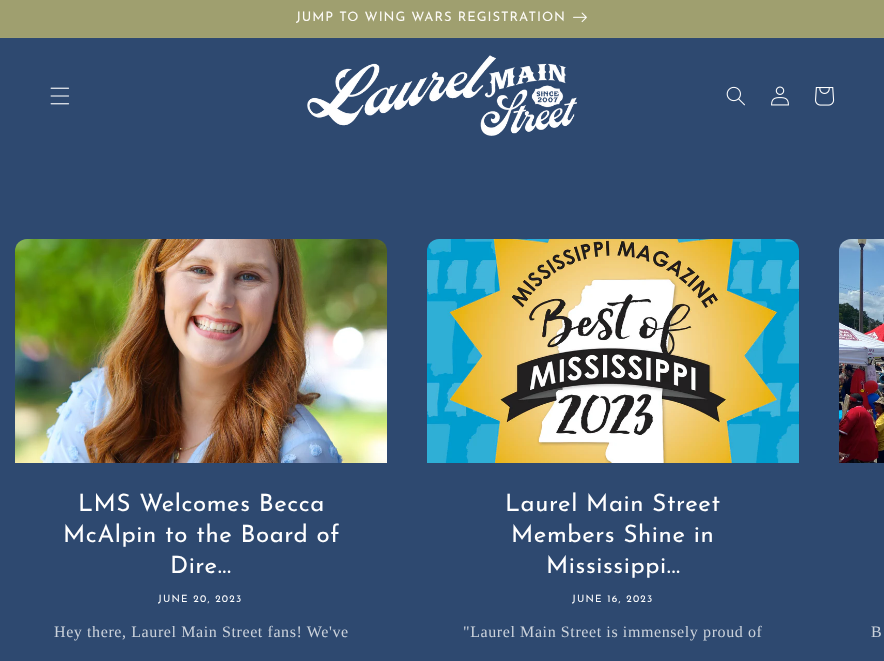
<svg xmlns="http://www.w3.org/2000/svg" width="884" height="661">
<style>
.a{font:13px Josefin Sans;letter-spacing:1px;fill:#fdfbf7}
.b{font:24px Josefin Sans;letter-spacing:0.6px;fill:#fff}
.c{font:10px Josefin Sans;letter-spacing:1.25px;fill:#fff}
.d{font:16px Liberation Serif;letter-spacing:0.6px;fill:#cbd2db}
</style>
<rect width="100%" height="100%" fill="#2e4970"/>
<path fill="#a1a172" d="M0 37h884v1H0z"/>
<path fill="#9f9f6f" d="M0 0h884v37H0z"/>
<image href="1.png" x="573" y="12" width="14" height="11"/>
<image href="2.png" x="50" y="87" width="20" height="18"/>
<image href="3.png" x="307" y="55" width="270" height="81"/>
<image href="4.png" x="726" y="86" width="19" height="20"/>
<image href="5.png" x="771" y="86" width="18" height="20"/>
<image href="6.png" x="815" y="87" width="20" height="19"/>
<image href="7.png" x="15" y="239" width="372" height="224"/>
<image href="8.png" x="427" y="239" width="372" height="224"/>
<image href="9.png" x="839" y="239" width="45" height="224"/>
<text class="a" x="296" y="21">JUMP TO WING WARS REGISTRATION</text>
<text class="b" x="78" y="511">LMS Welcomes Becca</text>
<text class="b" x="63" y="542">McAlpin to the Board of</text>
<text class="b" x="170" y="573">Dire...</text>
<text class="c" x="158" y="602">JUNE 20, 2023</text>
<text class="d" x="54" y="637">Hey there, Laurel Main Street fans! We've</text>
<text class="b" x="505" y="511">Laurel Main Street</text>
<text class="b" x="511" y="542">Members Shine in</text>
<text class="b" x="546" y="573">Mississippi...</text>
<text class="c" x="572" y="602">JUNE 16, 2023</text>
<text class="d" x="463" y="637">"Laurel Main Street is immensely proud of</text>
<text class="d" x="871" y="637">B</text>
</svg>
